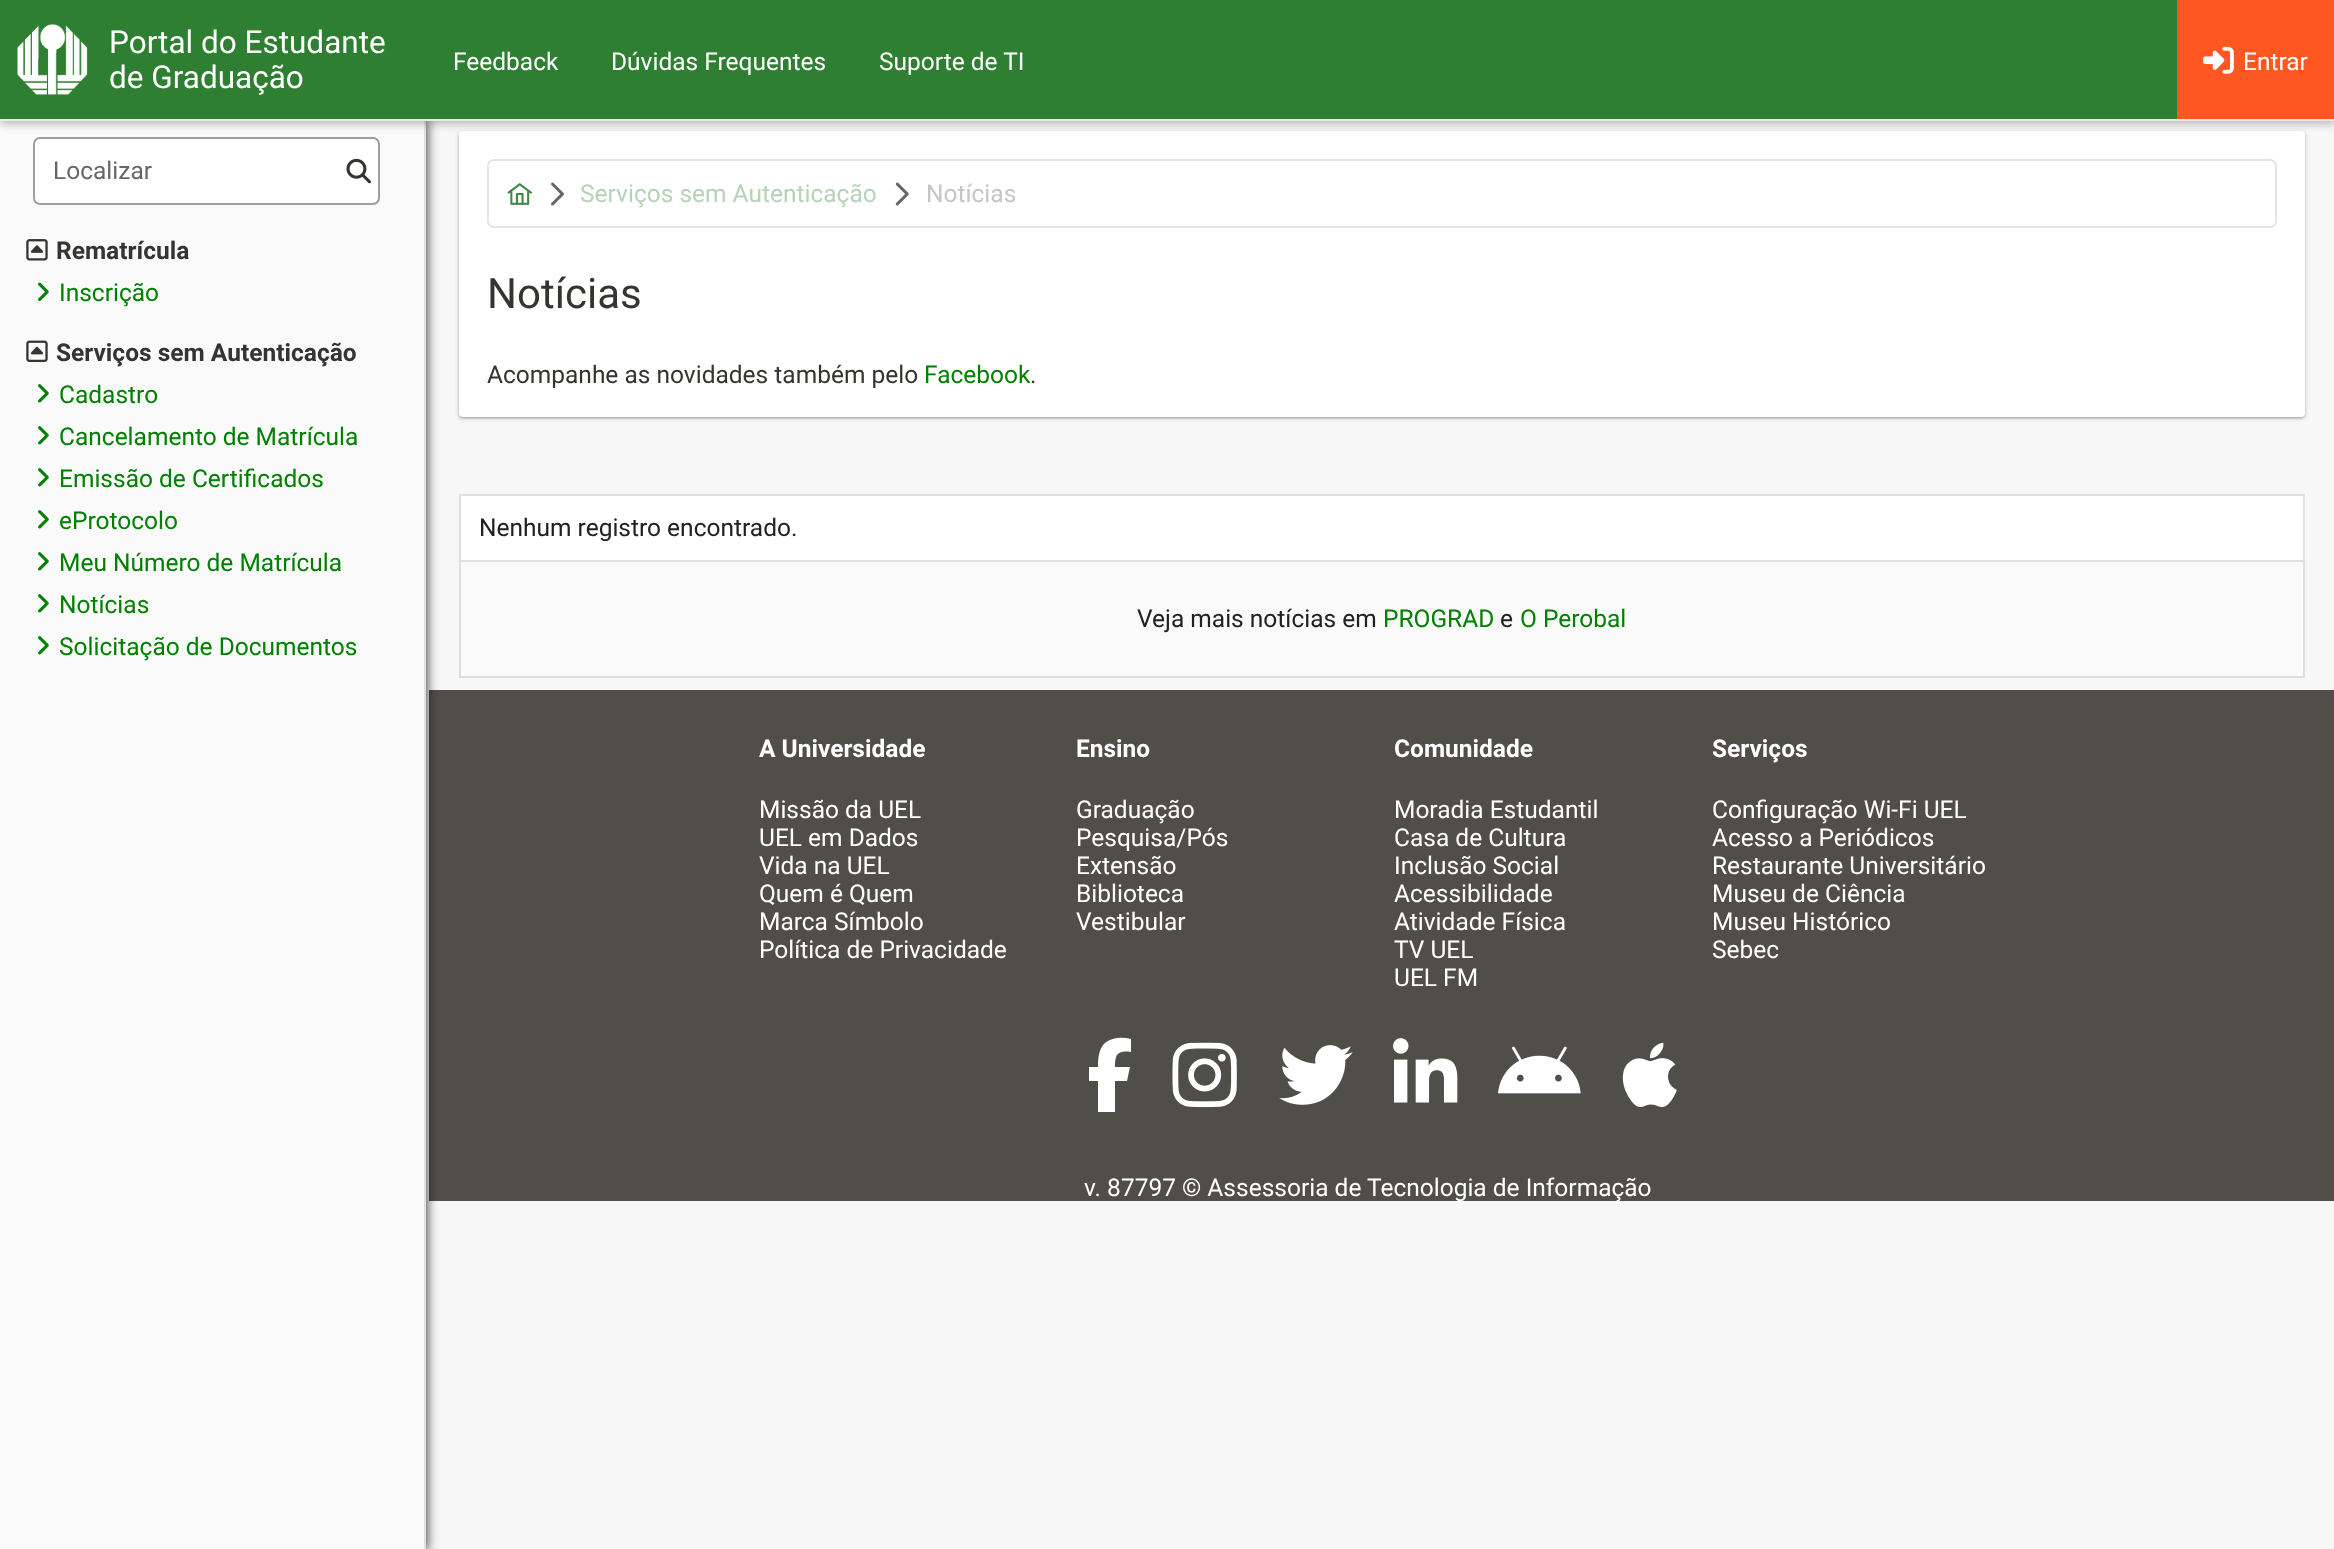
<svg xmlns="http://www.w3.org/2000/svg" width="2334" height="1549">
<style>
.a{font:31.5px Roboto;fill:#fff}
.b{font:24.5px Roboto;fill:#fff}
.c{font:24.5px Roboto;fill:#666}
.d{font:bold 24.5px Roboto;fill:#363430}
.e{font:24.5px Roboto;fill:#008000}
.f{font:24.5px Roboto;fill:#b6d2b7}
.g{font:24.5px Roboto;fill:#c5c5c5}
.h{font:42px Roboto;fill:#363430}
.i{font:24.5px Roboto;fill:#363430}
.j{font:24.5px Roboto;fill:#212121}
.k{font:bold 24.5px Roboto;fill:#fff}
</style>
<rect width="100%" height="100%" fill="#f7f7f7"/>
<path fill="#504e49" d="M429 690h1905v511H429z"/>
<path fill="#000000bf" filter="blur(6px)" d="M2 119h425v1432H2z"/>
<path fill="#fafafa" d="M0 121h424v1428H0z"/>
<path fill="#e0e0e0" d="M424 119h2v1430H424z"/>
<rect fill="#fff" stroke="#9e9e9e" stroke-width="2" x="34" y="138" width="345" height="66" rx="6"/>
<rect fill="#0000001f" filter="blur(1px)" x="460" y="137" width="1843" height="281" rx="2"/>
<rect fill="#00000024" filter="blur(1px)" x="459" y="133" width="1846" height="285" rx="4"/>
<rect fill="#00000033" filter="blur(2.5px)" x="459" y="133" width="1846" height="285" rx="4"/>
<rect fill="#fff" x="459" y="131" width="1846" height="286" rx="4"/>
<path fill="#00000042" filter="blur(4.5px)" d="M0 4h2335v120H0z"/>
<path fill="#2f7f33" d="M0 0h2177v119H0z"/>
<path fill="#e7e7e7" d="M0 119h2334v2H0z"/>
<image href="1.png" x="17" y="24" width="71" height="71"/>
<path fill="#ff5722" d="M2177 0h157v119H2177z"/>
<image href="2.png" x="2203" y="46" width="31" height="28"/>
<image href="3.png" x="346" y="158" width="25" height="26"/>
<image href="4.png" x="26" y="239" width="22" height="22"/>
<image href="5.png" x="38" y="282" width="11" height="19"/>
<image href="6.png" x="26" y="340" width="22" height="22"/>
<image href="7.png" x="38" y="384" width="11" height="19"/>
<image href="7.png" x="38" y="426" width="11" height="19"/>
<image href="7.png" x="38" y="468" width="11" height="19"/>
<image href="7.png" x="38" y="510" width="11" height="19"/>
<image href="7.png" x="38" y="552" width="11" height="19"/>
<image href="7.png" x="38" y="594" width="11" height="19"/>
<image href="7.png" x="38" y="636" width="11" height="19"/>
<rect fill="none" stroke="#e5e5e5" stroke-width="2" x="488" y="160" width="1788" height="67" rx="6"/>
<image href="8.png" x="507" y="183" width="25" height="22"/>
<image href="9.png" x="551" y="182" width="13" height="24"/>
<image href="10.png" x="895" y="182" width="14" height="24"/>
<path fill="#fff" stroke="#e0e0e0" stroke-width="2" d="M460 495h1844v66H460z"/>
<path fill="#fafafa" d="M461 562h1842v114H461z"/>
<path fill="#e0dedc" d="M2303 562h2v115H2303z"/>
<path fill="#e0dedc" d="M459 676h1846v2H459z"/>
<path fill="#e0dedc" d="M459 562h2v115H459z"/>
<path fill="#fff" d="M1098 1081v31v-31v31h17v-31h12l3-14h-15c0-12 2-17 16-15v-13c-12-3-27-1-31 12c-2 5-2 11-2 16h-9v14z"/>
<image href="11.png" x="1172" y="1042" width="65" height="66"/>
<image href="12.png" x="1279" y="1045" width="74" height="60"/>
<image href="13.png" x="1393" y="1038" width="65" height="65"/>
<image href="14.png" x="1498" y="1046" width="83" height="48"/>
<image href="15.png" x="1622" y="1042" width="55" height="66"/>
<text class="a" x="109" y="53">Portal do Estudante</text>
<text class="a" x="109" y="88">de Graduação</text>
<text class="b" x="453" y="70">Feedback</text>
<text class="b" x="611" y="70">Dúvidas Frequentes</text>
<text class="b" x="879" y="70">Suporte de TI</text>
<text class="b" x="2243" y="70">Entrar</text>
<text class="c" x="53" y="179">Localizar</text>
<text class="d" x="56" y="259">Rematrícula</text>
<text class="e" x="59" y="301">Inscrição</text>
<text class="d" x="56" y="361">Serviços sem Autenticação</text>
<text class="e" x="59" y="403">Cadastro</text>
<text class="e" x="59" y="445">Cancelamento de Matrícula</text>
<text class="e" x="59" y="487">Emissão de Certificados</text>
<text class="e" x="59" y="529">eProtocolo</text>
<text class="e" x="59" y="571">Meu Número de Matrícula</text>
<text class="e" x="59" y="613">Notícias</text>
<text class="e" x="59" y="655">Solicitação de Documentos</text>
<text class="f" x="580" y="202">Serviços sem Autenticação</text>
<text class="g" x="926" y="202">Notícias</text>
<text class="h" x="487" y="308">Notícias</text>
<text class="i" x="487" y="383">Acompanhe as novidades também pelo</text>
<text class="e" x="924" y="383">Facebook</text>
<text class="i" x="1030" y="383">.</text>
<text class="j" x="479" y="536">Nenhum registro encontrado.</text>
<text class="j" x="1137" y="627">Veja mais notícias em</text>
<text class="e" x="1383" y="627">PROGRAD</text>
<text class="j" x="1500" y="627">e</text>
<text class="e" x="1520" y="627">O Perobal</text>
<text class="k" x="759" y="757">A Universidade</text>
<text class="b" x="759" y="818">Missão da UEL</text>
<text class="b" x="759" y="846">UEL em Dados</text>
<text class="b" x="759" y="874">Vida na UEL</text>
<text class="b" x="759" y="902">Quem é Quem</text>
<text class="b" x="759" y="930">Marca Símbolo</text>
<text class="b" x="759" y="958">Política de Privacidade</text>
<text class="k" x="1076" y="757">Ensino</text>
<text class="b" x="1076" y="818">Graduação</text>
<text class="b" x="1076" y="846">Pesquisa/Pós</text>
<text class="b" x="1076" y="874">Extensão</text>
<text class="b" x="1076" y="902">Biblioteca</text>
<text class="b" x="1076" y="930">Vestibular</text>
<text class="k" x="1394" y="757">Comunidade</text>
<text class="b" x="1394" y="818">Moradia Estudantil</text>
<text class="b" x="1394" y="846">Casa de Cultura</text>
<text class="b" x="1394" y="874">Inclusão Social</text>
<text class="b" x="1394" y="902">Acessibilidade</text>
<text class="b" x="1394" y="930">Atividade Física</text>
<text class="b" x="1394" y="958">TV UEL</text>
<text class="b" x="1394" y="986">UEL FM</text>
<text class="k" x="1712" y="757">Serviços</text>
<text class="b" x="1712" y="818">Configuração Wi-Fi UEL</text>
<text class="b" x="1712" y="846">Acesso a Periódicos</text>
<text class="b" x="1712" y="874">Restaurante Universitário</text>
<text class="b" x="1712" y="902">Museu de Ciência</text>
<text class="b" x="1712" y="930">Museu Histórico</text>
<text class="b" x="1712" y="958">Sebec</text>
<text class="b" x="1084" y="1196">v. 87797 © Assessoria de Tecnologia de Informação</text>
</svg>
